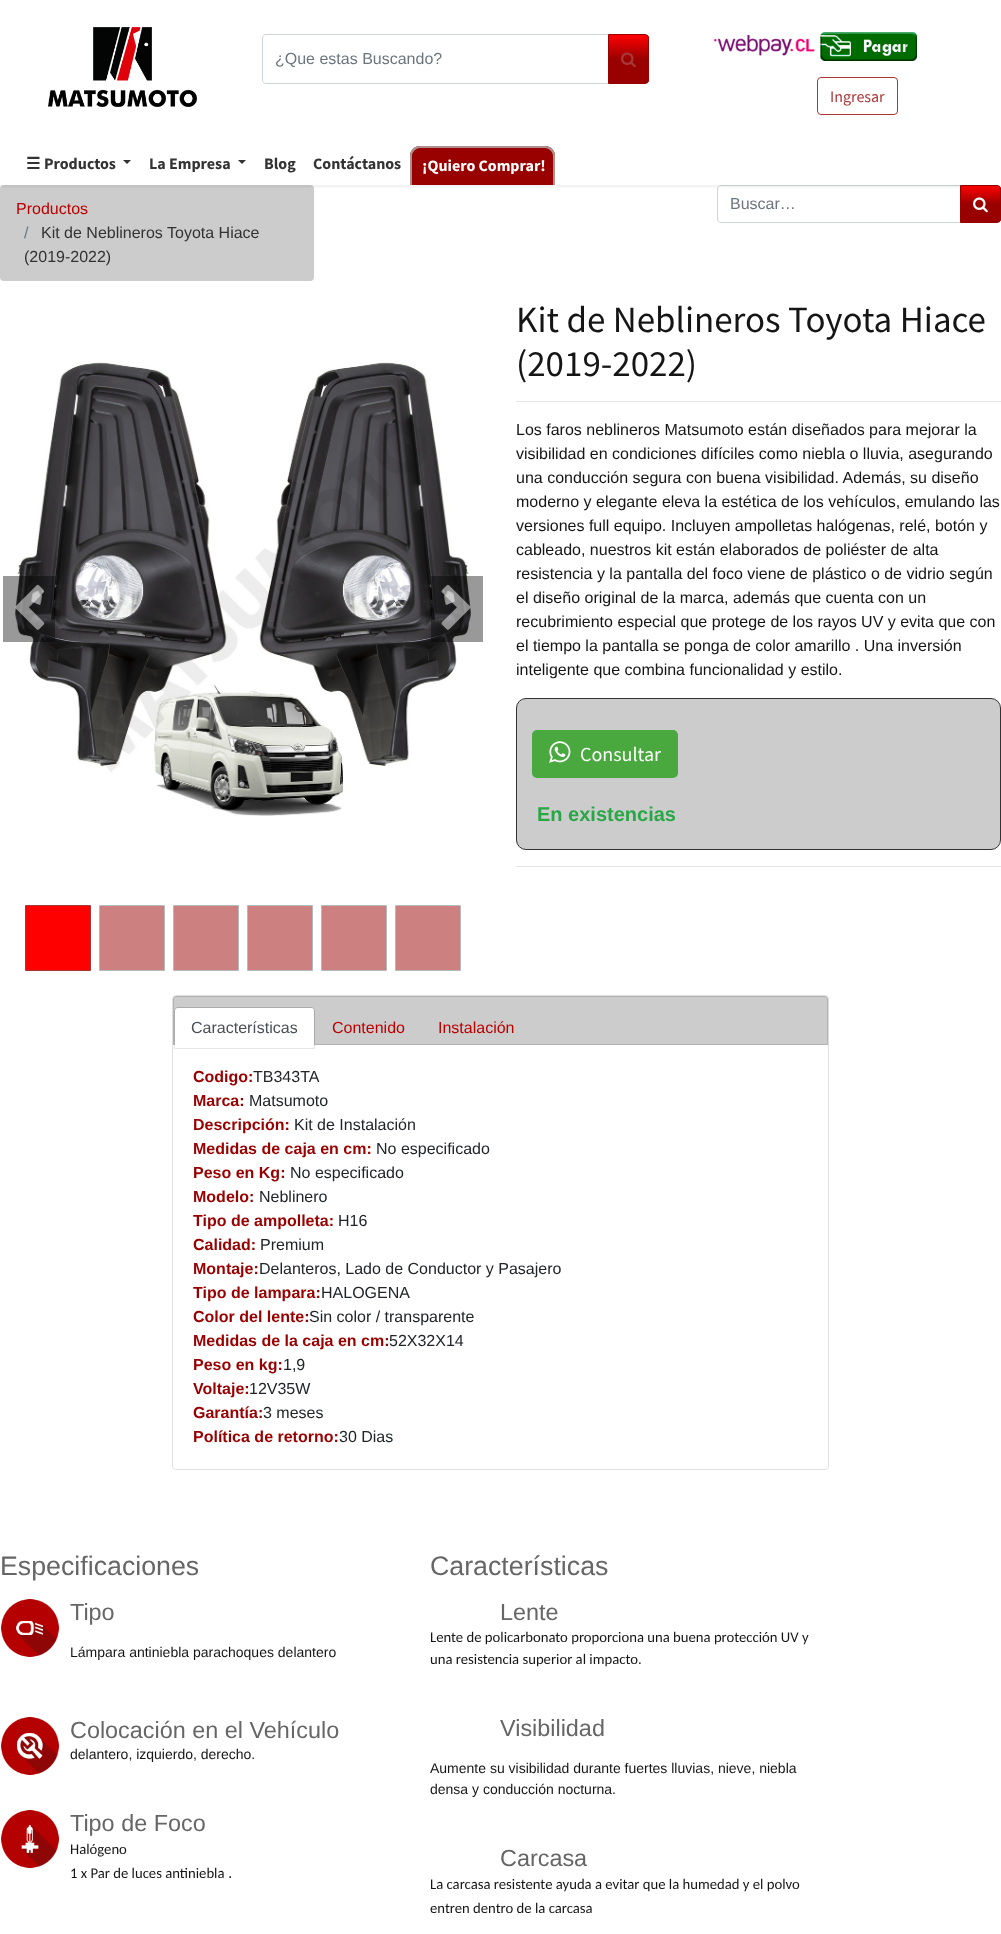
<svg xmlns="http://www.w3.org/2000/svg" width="1001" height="1934">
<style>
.a{font:16px Liberation Sans;fill:#6c757d}
.b{font:16px Source Sans Pro;fill:#a83838}
.c{font:bold 16px DejaVu Sans;fill:#333}
.d{font:bold 16px Source Sans Pro;fill:#333}
.e{font:bold 16px Source Sans Pro;fill:#fff}
.f{font:16px Liberation Sans;fill:#b00}
.g{font:16px Liberation Sans;fill:#333}
.h{font:37px Source Sans Pro;fill:#151515}
.i{font:16px Liberation Sans;fill:#151515}
.j{font:20px Source Sans Pro;fill:#fff}
.k{font:bold 20px Liberation Sans;fill:#28a745}
.l{font:16px Liberation Sans;fill:#495057}
.m{font:bold 16px Liberation Sans;fill:#900}
.n{font:16px Liberation Sans;fill:#212529}
.o{font:26.75px Liberation Sans;fill:#666}
.p{font:23.4px Liberation Sans;fill:#666}
.q{font:14px Liberation Sans;fill:#151515}
.r{font:14.7px Carlito;fill:#151515}
</style>
<defs>
<clipPath id="clip1"><path d="M960 185h37c2 0 4 2 4 4v30c0 2-2 4-4 4h-37z"/></clipPath>
<linearGradient id="g1" gradientUnits="userSpaceOnUse" x1="981" y1="186" x2="981" y2="222"><stop offset="0" stop-color="#f00"/><stop offset="0.5" stop-color="#900"/><stop offset="1" stop-color="#900"/></linearGradient>
<clipPath id="clip2"><path d="M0 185h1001v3H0z"/></clipPath>
<clipPath id="clip3"><path d="M608 34h37c2 0 4 2 4 4v42c0 2-2 4-4 4h-37z"/></clipPath>
<linearGradient id="g2" gradientUnits="userSpaceOnUse" x1="629" y1="35" x2="629" y2="83"><stop offset="0" stop-color="#f00"/><stop offset="0.5" stop-color="#900"/><stop offset="1" stop-color="#900"/></linearGradient>
</defs>
<rect width="100%" height="100%" fill="#fff"/>
<rect fill="#ccc" y="185" width="314" height="96" rx="4"/>
<path fill="none" stroke="#ced4da" d="M721 185.5h239.5v37h-239.5c-2 0-3.5-1.5-3.5-3.5v-30c0-2 1.5-3.5 3.5-3.5z"/>
<g clip-path="url(#clip1)">
<path fill="url(#g1)" d="M961 186h40v36H961z"/>
</g>
<path fill="none" stroke="#900" d="M960.5 185.5h36.5c2 0 3.5 1.5 3.5 3.5v30c0 2-1.5 3.5-3.5 3.5h-36.5z"/>
<g clip-path="url(#clip2)">
<path fill="#00000012" filter="blur(2px)" d="M0 2h1001v185H0z"/>
</g>
<image href="1.png" x="48" y="27" width="149" height="80"/>
<path fill="none" stroke="#ced4da" d="M266 34.5h342.5v49h-342.5c-2 0-3.5-1.5-3.5-3.5v-42c0-2 1.5-3.5 3.5-3.5z"/>
<g clip-path="url(#clip3)">
<path fill="url(#g2)" d="M609 35h40v48H609z"/>
</g>
<path fill="none" stroke="#900" d="M608.5 34.5h36.5c2 0 3.5 1.5 3.5 3.5v42c0 2-1.5 3.5-3.5 3.5h-36.5z"/>
<image href="2.png" x="621" y="52" width="15" height="16"/>
<image href="3.png" x="714" y="32" width="203" height="29"/>
<rect fill="none" stroke="#a83838" x="817.5" y="77.5" width="80" height="37" rx="3.5"/>
<path fill="#333" d="M123 160h8l-4 4z"/>
<path fill="#333" d="M238 160h8l-4 4z"/>
<path fill="#900" d="M420 146h125c5.5 0 10 4.5 10 10v29h-145v-29c0-5.5 4.5-10 10-10z"/>
<path fill="#af9090" fill-rule="evenodd" d="M420 146h125c6 0 10 4 10 10v29h-145v-29c0-6 4-10 10-10zm0 2h125c4 0 8 4 8 8v29h-141v-29c0-4 4-8 8-8z"/>
<image href="4.png" x="973" y="197" width="15" height="16"/>
<image href="5.png" x="15" y="362" width="456" height="454"/>
<path fill="#00000066" d="M3 576h52v66H3z"/>
<image href="6.png" x="15" y="584" width="30" height="46"/>
<path fill="#00000066" d="M431 576h52v66H431z"/>
<image href="7.png" x="441" y="584" width="30" height="46"/>
<path fill="#f00" stroke="#a83838" d="M25.5 905.5h65v65H25.5z"/>
<path fill="#cc8080" stroke="#b6babe" d="M99.5 905.5h65v65H99.5z"/>
<path fill="#cc8080" stroke="#b6babe" d="M173.5 905.5h65v65H173.5z"/>
<path fill="#cc8080" stroke="#b6babe" d="M247.5 905.5h65v65H247.5z"/>
<path fill="#cc8080" stroke="#b6babe" d="M321.5 905.5h65v65H321.5z"/>
<path fill="#cc8080" stroke="#b6babe" d="M395.5 905.5h65v65H395.5z"/>
<path fill="#e6e6e6" d="M516 401h485v1H516z"/>
<rect fill="#ccc" stroke="#333" x="516.5" y="698.5" width="484" height="151" rx="9.5"/>
<rect fill="#49a93e" x="532" y="730" width="146" height="48" rx="5"/>
<image href="8.png" x="549" y="741" width="22" height="22"/>
<path fill="#e6e6e6" d="M516 866h485v1H516z"/>
<rect fill="none" stroke="#dfdfdf" x="172.5" y="995.5" width="656" height="474" rx="3.5"/>
<path fill="#ccc" d="M176 996h649c1.5 0 3 1.5 3 3v46h-655v-46c0-1.5 1.5-3 3-3z"/>
<path fill="none" stroke="#0000001f" d="M176 996.5h649c1.5 0 2.5 1 2.5 2.5v45.5h-654v-45.5c0-1.5 1-2.5 2.5-2.5z"/>
<path fill="#fff" stroke="#aaa" d="M178 1007.5h133c2 0 3.5 1.5 3.5 3.5v37.5h-140v-37.5c0-2 1.5-3.5 3.5-3.5z"/>
<path fill="#ffffffb3" d="M173 1045h655v421c0 1.5-1.5 3-3 3h-649c-1.5 0-3-1.5-3-3z"/>
<image href="9.png" x="1" y="1599" width="58" height="58"/>
<image href="10.png" x="1" y="1717" width="58" height="58"/>
<image href="11.png" x="1" y="1810" width="58" height="58"/>
<text class="a" x="275" y="64">¿Que estas Buscando?</text>
<text class="b" x="830" y="102">Ingresar</text>
<text class="c" x="26" y="169">☰</text>
<text class="d" x="44" y="169">Productos</text>
<text class="d" x="149" y="169">La Empresa</text>
<text class="d" x="264" y="169">Blog</text>
<text class="d" x="313" y="169">Contáctanos</text>
<text class="e" x="422" y="171">¡Quiero Comprar!</text>
<text class="f" x="16" y="214">Productos</text>
<text class="a" x="24" y="238">/</text>
<text class="g" x="41" y="238">Kit de Neblineros Toyota Hiace</text>
<text class="g" x="24" y="262">(2019-2022)</text>
<text class="a" x="730" y="209">Buscar…</text>
<text class="h" x="516" y="332">Kit de Neblineros Toyota Hiace</text>
<text class="h" x="516" y="376">(2019-2022)</text>
<text class="i" x="516" y="435">Los faros neblineros Matsumoto están diseñados para mejorar la</text>
<text class="i" x="516" y="459">visibilidad en condiciones difíciles como niebla o lluvia, asegurando</text>
<text class="i" x="516" y="483">una conducción segura con buena visibilidad. Además, su diseño</text>
<text class="i" x="516" y="507">moderno y elegante eleva la estética de los vehículos, emulando las</text>
<text class="i" x="516" y="531">versiones full equipo. Incluyen ampolletas halógenas, relé, botón y</text>
<text class="i" x="516" y="555">cableado, nuestros kit están elaborados de poliéster de alta</text>
<text class="i" x="516" y="579">resistencia y la pantalla del foco viene de plástico o de vidrio según</text>
<text class="i" x="516" y="603">el diseño original de la marca, además que cuenta con un</text>
<text class="i" x="516" y="627">recubrimiento especial que protege de los rayos UV y evita que con</text>
<text class="i" x="516" y="651">el tiempo la pantalla se ponga de color amarillo . Una inversión</text>
<text class="i" x="516" y="675">inteligente que combina funcionalidad y estilo.</text>
<text class="j" x="580" y="761">Consultar</text>
<text class="k" x="537" y="821">En existencias</text>
<text class="l" x="191" y="1033">Características</text>
<text class="f" x="332" y="1033">Contenido</text>
<text class="f" x="438" y="1033">Instalación</text>
<text class="m" x="193" y="1082">Codigo:</text>
<text class="n" x="253" y="1082">TB343TA</text>
<text class="m" x="193" y="1106">Marca:</text>
<text class="n" x="249" y="1106">Matsumoto</text>
<text class="m" x="193" y="1130">Descripción:</text>
<text class="n" x="294" y="1130">Kit de Instalación</text>
<text class="m" x="193" y="1154">Medidas de caja en cm:</text>
<text class="n" x="376" y="1154">No especificado</text>
<text class="m" x="193" y="1178">Peso en Kg:</text>
<text class="n" x="290" y="1178">No especificado</text>
<text class="m" x="193" y="1202">Modelo:</text>
<text class="n" x="259" y="1202">Neblinero</text>
<text class="m" x="193" y="1226">Tipo de ampolleta:</text>
<text class="n" x="338" y="1226">H16</text>
<text class="m" x="193" y="1250">Calidad:</text>
<text class="n" x="260" y="1250">Premium</text>
<text class="m" x="193" y="1274">Montaje:</text>
<text class="n" x="259" y="1274">Delanteros, Lado de Conductor y Pasajero</text>
<text class="m" x="193" y="1298">Tipo de lampara:</text>
<text class="n" x="321" y="1298">HALOGENA</text>
<text class="m" x="193" y="1322">Color del lente:</text>
<text class="n" x="309" y="1322">Sin color / transparente</text>
<text class="m" x="193" y="1346">Medidas de la caja en cm:</text>
<text class="n" x="389" y="1346">52X32X14</text>
<text class="m" x="193" y="1370">Peso en kg:</text>
<text class="n" x="283" y="1370">1,9</text>
<text class="m" x="193" y="1394">Voltaje:</text>
<text class="n" x="249" y="1394">12V35W</text>
<text class="m" x="193" y="1418">Garantía:</text>
<text class="n" x="263" y="1418">3 meses</text>
<text class="m" x="193" y="1442">Política de retorno:</text>
<text class="n" x="339" y="1442">30 Dias</text>
<text class="o" x="0" y="1575">Especificaciones</text>
<text class="p" x="70" y="1620">Tipo</text>
<text class="q" x="70" y="1657">Lámpara antiniebla parachoques delantero</text>
<text class="p" x="70" y="1738">Colocación en el Vehículo</text>
<text class="q" x="70" y="1759">delantero, izquierdo, derecho.</text>
<text class="p" x="70" y="1831">Tipo de Foco</text>
<text class="r" x="70" y="1854">Halógeno</text>
<text class="r" x="70" y="1878">1 x Par de luces antiniebla</text>
<text class="i" x="228" y="1878">.</text>
<text class="o" x="430" y="1575">Características</text>
<text class="p" x="500" y="1620">Lente</text>
<text class="r" x="430" y="1642">Lente de policarbonato proporciona una buena protección UV y</text>
<text class="r" x="430" y="1664">una resistencia superior al impacto.</text>
<text class="p" x="500" y="1736">Visibilidad</text>
<text class="q" x="430" y="1773">Aumente su visibilidad durante fuertes lluvias, nieve, niebla</text>
<text class="q" x="430" y="1794">densa y conducción nocturna.</text>
<text class="p" x="500" y="1866">Carcasa</text>
<text class="r" x="430" y="1889">La carcasa resistente ayuda a evitar que la humedad y el polvo</text>
<text class="r" x="430" y="1913">entren dentro de la carcasa</text>
</svg>
